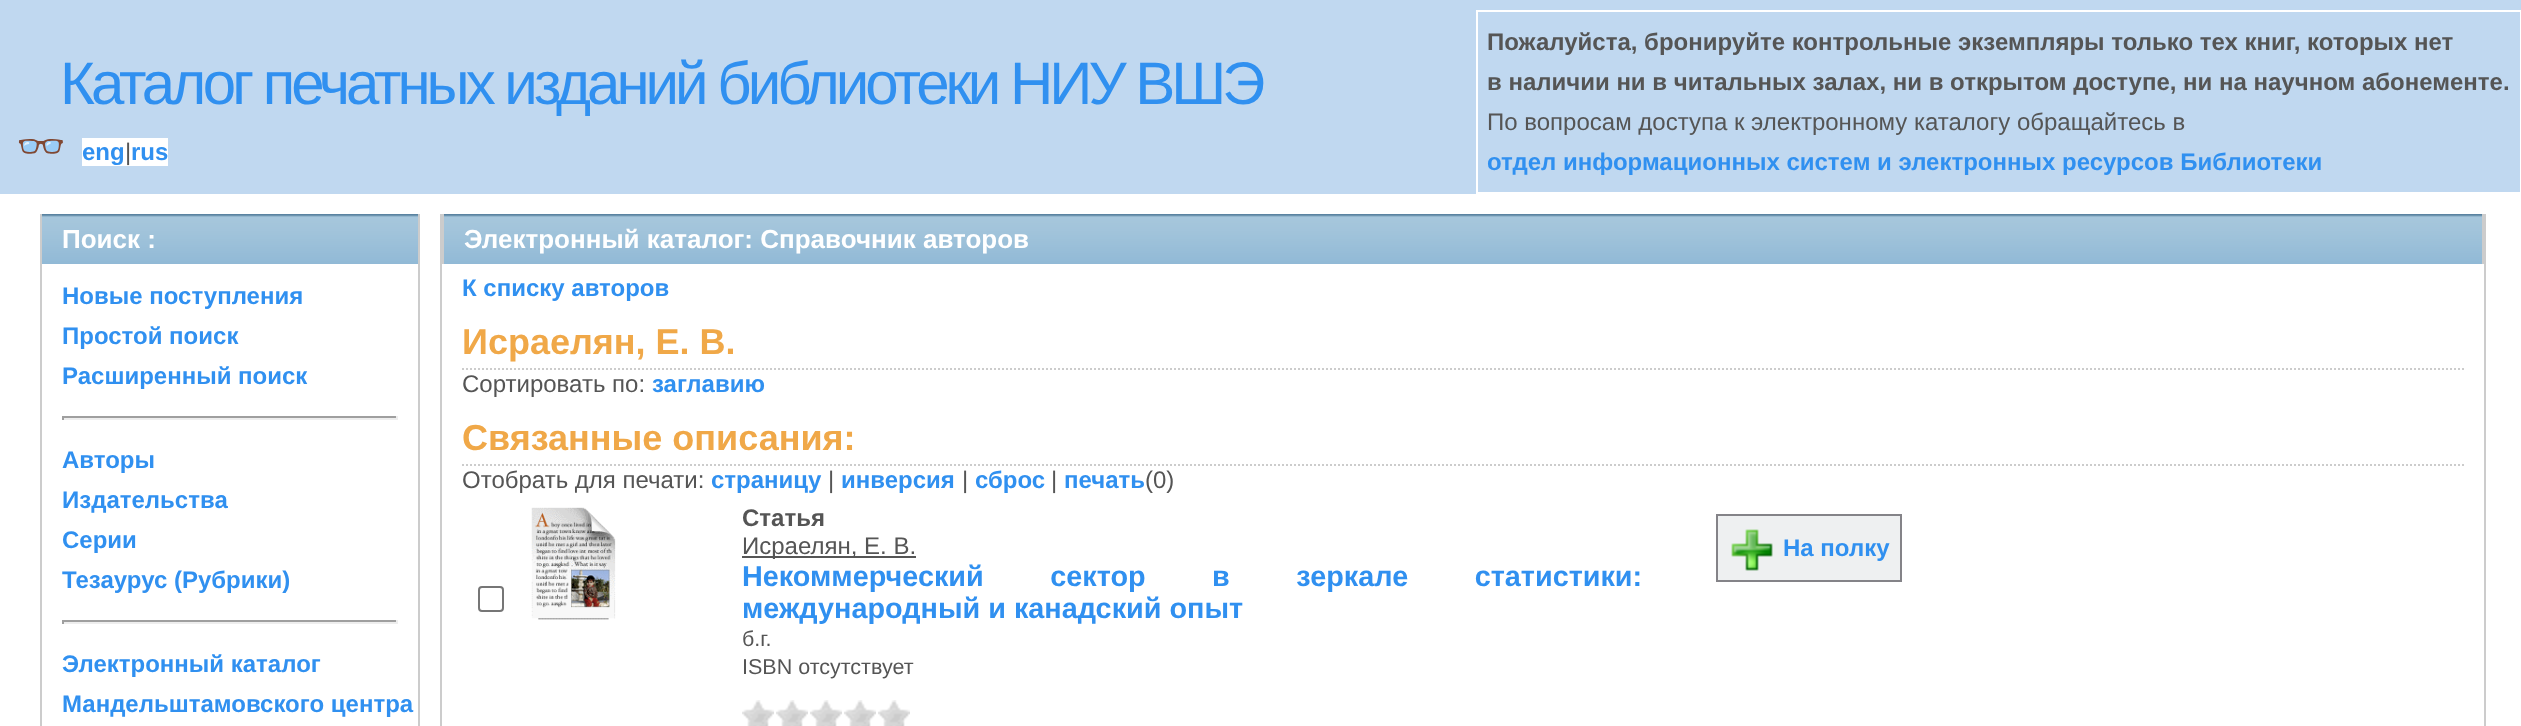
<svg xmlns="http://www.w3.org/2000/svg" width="2521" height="726">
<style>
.a{font:60px Liberation Sans;letter-spacing:-4px;fill:#3090f0}
.b{font:bold 40px Noto Color Emoji;fill:#3090f0}
.c{font:bold 24px Liberation Sans;fill:#3090f0}
.d{font:24px Liberation Sans;fill:#555}
.e{font:bold 24px Liberation Sans;fill:#555}
.f{font:bold 26px Liberation Sans;fill:#fff}
.g{font:bold 36px Liberation Sans;fill:#f0a848}
.h{font:bold 28.8px Liberation Sans;fill:#3090f0}
.i{font:21.5px Liberation Sans;fill:#555}
</style>
<rect width="100%" height="100%" fill="#fff"/>
<path fill="#c0d8f0" d="M0 0h2521v194H0z"/>
<path fill="#fff" d="M82 138h86v28H82z"/>
<path fill="none" stroke="#fff" stroke-width="2" d="M1477 11h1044v182H1477z"/>
<image href="1.png" x="42" y="214" width="376" height="50"/>
<path fill="#ccc" d="M418 214h2v512H418z"/>
<path fill="#ccc" d="M40 214h2v512H40z"/>
<path fill="#9f9f9f" d="M62 416h336v2H62z"/>
<path fill="#eee" d="M396 416h2v4H396z"/>
<path fill="#eee" d="M62 418h336v2H62z"/>
<path fill="#9f9f9f" d="M62 416h2v4H62z"/>
<path fill="#9f9f9f" d="M62 620h336v2H62z"/>
<path fill="#eee" d="M396 620h2v4H396z"/>
<path fill="#eee" d="M62 622h336v2H62z"/>
<path fill="#9f9f9f" d="M62 620h2v4H62z"/>
<path fill="#ccc" d="M2484 214h2v512H2484z"/>
<path fill="#ccc" d="M440 214h2v512H440z"/>
<image href="2.png" x="444" y="214" width="2038" height="50"/>
<path fill="#ccc" d="M2482 214h2v50H2482z"/>
<path fill="#ccc" d="M442 214h2v50H442z"/>
<path fill="none" stroke="#ccc" stroke-width="2" stroke-dasharray="2 2" d="M462 369h2002"/>
<path fill="none" stroke="#ccc" stroke-width="2" stroke-dasharray="2 2" d="M462 465h2002"/>
<rect fill="none" stroke="#767676" stroke-width="2" x="479" y="587" width="24" height="24" rx="3"/>
<image href="3.png" x="531" y="507" width="85" height="113"/>
<path fill="#555" d="M742 556h174v2H742z"/>
<image href="4.png" x="742" y="700" width="32" height="26"/>
<image href="4.png" x="776" y="700" width="32" height="26"/>
<image href="4.png" x="810" y="700" width="32" height="26"/>
<image href="4.png" x="844" y="700" width="32" height="26"/>
<image href="4.png" x="878" y="700" width="32" height="26"/>
<path fill="#eef0f1" stroke="#848388" stroke-width="2" d="M1717 515h184v66H1717z"/>
<image href="5.png" x="1731" y="529" width="42" height="42"/>
<text class="a" x="60" y="104">Каталог печатных изданий библиотеки НИУ ВШЭ</text>
<text class="b" x="16" y="160">👓</text>
<text class="c" x="82" y="160">eng</text>
<text class="d" x="125" y="160">|</text>
<text class="c" x="131" y="160">rus</text>
<text class="e" x="1487" y="50">Пожалуйста, бронируйте контрольные экземпляры только тех книг, которых нет</text>
<text class="e" x="1487" y="90">в наличии ни в читальных залах, ни в открытом доступе, ни на научном абонементе.</text>
<text class="d" x="1487" y="130">По вопросам доступа к электронному каталогу обращайтесь в</text>
<text class="c" x="1487" y="170">отдел информационных систем и электронных ресурсов Библиотеки</text>
<text class="f" x="62" y="248">Поиск :</text>
<text class="c" x="62" y="304">Новые поступления</text>
<text class="c" x="62" y="344">Простой поиск</text>
<text class="c" x="62" y="384">Расширенный поиск</text>
<text class="c" x="62" y="468">Авторы</text>
<text class="c" x="62" y="508">Издательства</text>
<text class="c" x="62" y="548">Серии</text>
<text class="c" x="62" y="588">Тезаурус (Рубрики)</text>
<text class="c" x="62" y="672">Электронный каталог</text>
<text class="c" x="62" y="712">Мандельштамовского центра</text>
<text class="f" x="464" y="248">Электронный каталог: Справочник авторов</text>
<text class="c" x="462" y="296">К списку авторов</text>
<text class="g" x="462" y="354">Исраелян, Е. В.</text>
<text class="d" x="462" y="392">Сортировать по:</text>
<text class="c" x="652" y="392">заглавию</text>
<text class="g" x="462" y="450">Связанные описания:</text>
<text class="d" x="462" y="488">Отобрать для печати:</text>
<text class="c" x="711" y="488">страницу</text>
<text class="d" x="828" y="488">|</text>
<text class="c" x="841" y="488">инверсия</text>
<text class="d" x="962" y="488">|</text>
<text class="c" x="975" y="488">сброс</text>
<text class="d" x="1051" y="488">|</text>
<text class="c" x="1064" y="488">печать</text>
<text class="d" x="1145" y="488">(0)</text>
<text class="e" x="742" y="526">Статья</text>
<text class="d" x="742" y="554">Исраелян, Е. В.</text>
<text class="h" x="742" y="586" word-spacing="58.5">Некоммерческий сектор в зеркале статистики:</text>
<text class="h" x="742" y="618">международный и канадский опыт</text>
<text class="i" x="742" y="646">б.г.</text>
<text class="i" x="742" y="674">ISBN отсутствует</text>
<text class="c" x="1783" y="556">На полку</text>
</svg>
